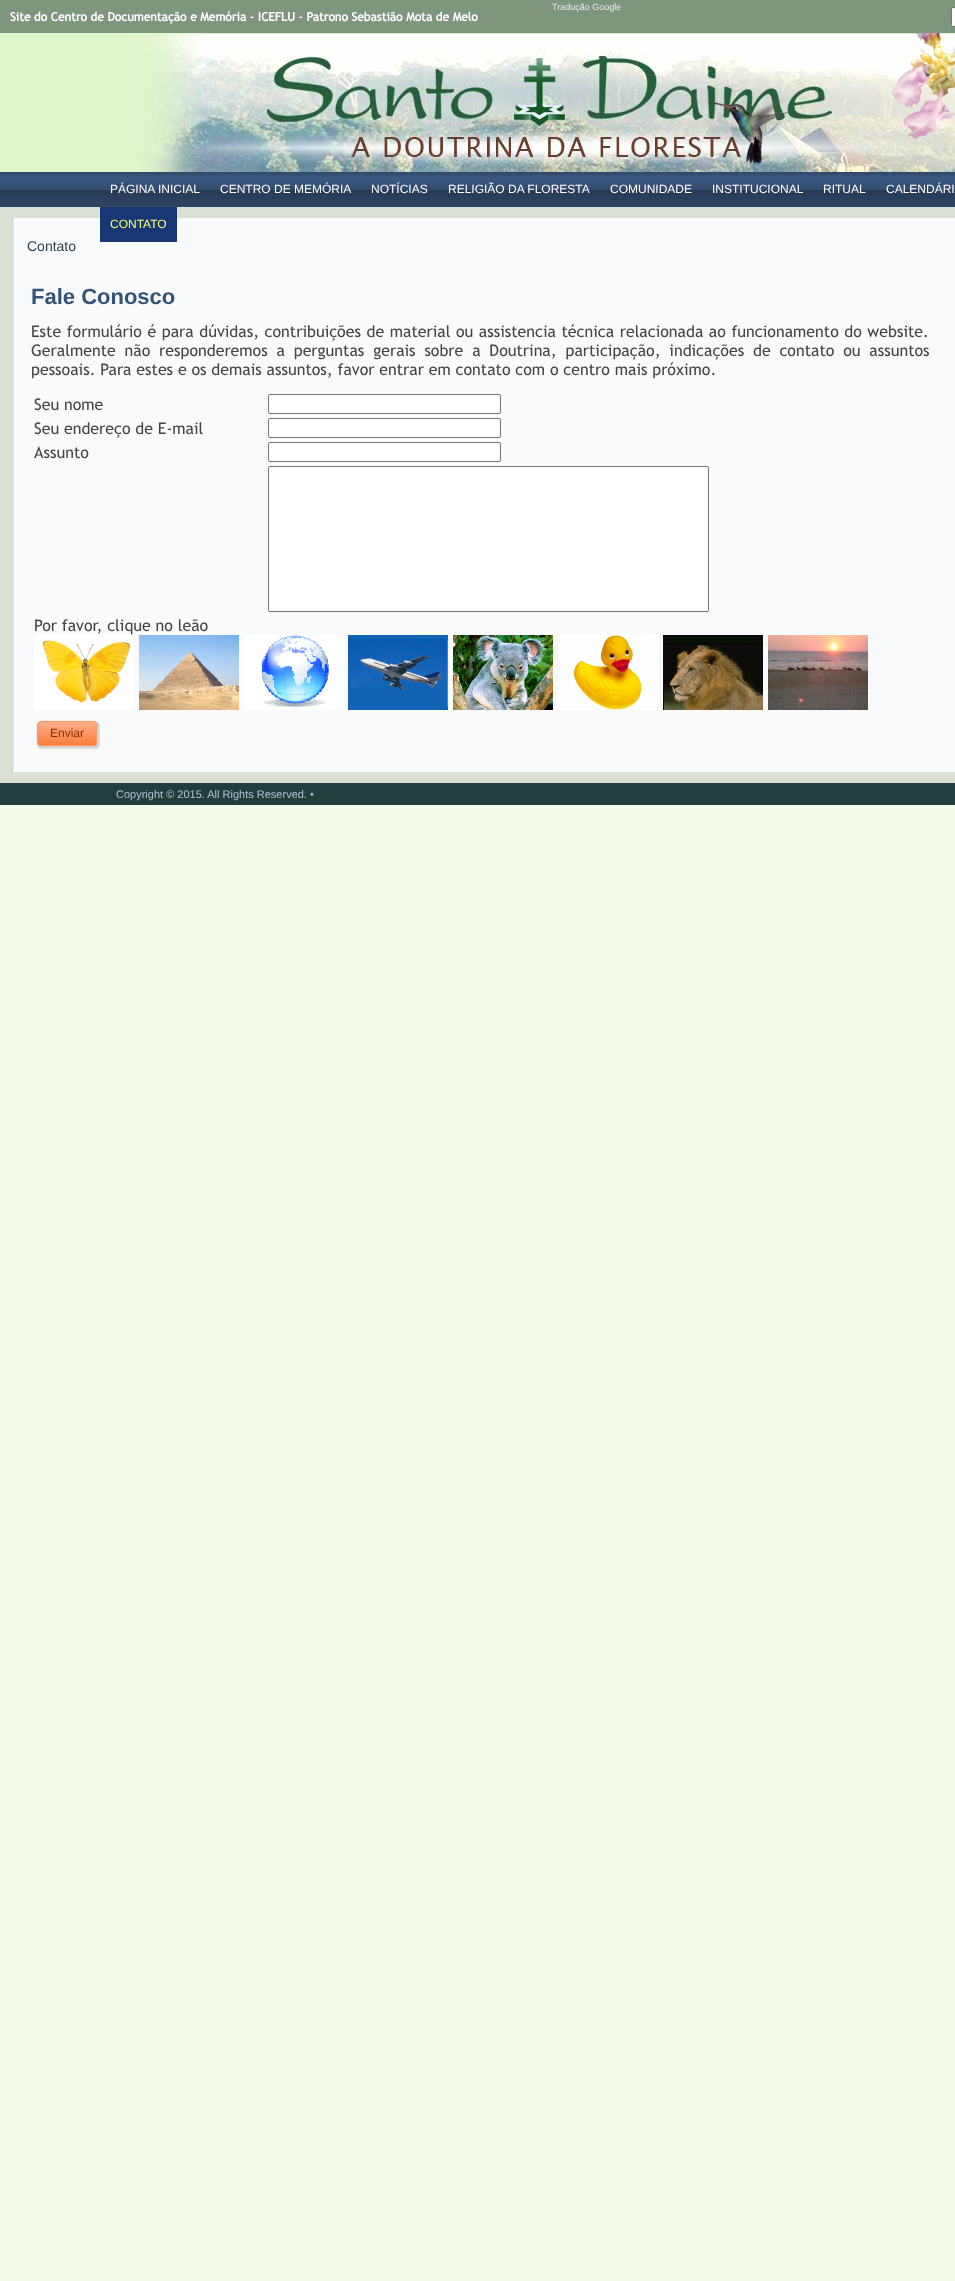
<svg xmlns="http://www.w3.org/2000/svg" width="955" height="2281">
<style>
.a{font:bold 12px Trebuchet MS;fill:#fff}
.b{font:9px Liberation Sans;fill:#e8e8e8}
.c{font:14px Liberation Sans;fill:#2e3d4c}
.d{font:bold 22px Liberation Sans;fill:#325376}
.e{font:16px Trebuchet MS;fill:#444}
.f{font:12px Liberation Sans;fill:#8c3103}
.g{font:12px Liberation Sans;fill:#fff}
.h{font:12px Liberation Sans;fill:#ffff75}
.i{font:11px Liberation Sans;fill:#b2c2d1}
.j{font:11px Liberation Sans;fill:#97c0d8}
</style>
<rect width="100%" height="100%" fill="#f3faec"/>
<image href="1.png" x="0" y="0" width="955" height="172"/>
<image href="2.png" x="133" y="34" width="822" height="138"/>
<rect fill="#fff" stroke="#767676" x="951.5" y="7.5" width="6" height="19" rx="1.5"/>
<image href="14.png" x="0" y="207" width="955" height="576"/>
<image href="3.png" x="0" y="218" width="955" height="554"/>
<rect fill="#fff" stroke="#767676" x="268.5" y="394.5" width="232" height="19" rx="1.5"/>
<rect fill="#fff" stroke="#767676" x="268.5" y="418.5" width="232" height="19" rx="1.5"/>
<rect fill="#fff" stroke="#767676" x="268.5" y="442.5" width="232" height="19" rx="1.5"/>
<rect fill="#fff" stroke="#767676" x="268.5" y="466.5" width="440" height="145" rx="1.5"/>
<image href="4.png" x="34" y="635" width="100" height="75"/>
<image href="5.png" x="139" y="635" width="100" height="75"/>
<image href="6.png" x="244" y="635" width="100" height="75"/>
<image href="7.png" x="348" y="635" width="100" height="75"/>
<image href="8.png" x="453" y="635" width="100" height="75"/>
<image href="9.png" x="558" y="635" width="100" height="75"/>
<image href="10.png" x="663" y="635" width="100" height="75"/>
<image href="11.png" x="768" y="635" width="100" height="75"/>
<image href="12.png" x="36" y="720" width="54" height="29"/>
<image href="13.png" x="90" y="720" width="10" height="29"/>
<image href="15.png" x="0" y="172" width="955" height="35"/>
<image href="16.png" x="891" y="33" width="64" height="107"/>
<path fill="#193775" d="M100 207h77v35H100z"/>
<path fill="#233d3d" d="M0 783h955v22H0z"/>
<text class="a" x="10" y="21">Site do Centro de Documentação e Memória - ICEFLU - Patrono Sebastião Mota de Melo</text>
<text class="b" x="552" y="10">Tradução Google</text>
<text class="c" x="27" y="251">Contato</text>
<text class="d" x="31" y="304">Fale Conosco</text>
<text class="e" x="31" y="337" word-spacing="0.75">Este formulário é para dúvidas, contribuições de material ou assistencia técnica relacionada ao funcionamento do website.</text>
<text class="e" x="31" y="356" word-spacing="4">Geralmente não responderemos a perguntas gerais sobre a Doutrina, participação, indicações de contato ou assuntos</text>
<text class="e" x="31" y="375">pessoais. Para estes e os demais assuntos, favor entrar em contato com o centro mais próximo.</text>
<text class="e" x="34" y="410">Seu nome</text>
<text class="e" x="34" y="434">Seu endereço de E-mail</text>
<text class="e" x="34" y="458">Assunto</text>
<text class="e" x="34" y="631">Por favor, clique no leão</text>
<text class="f" x="50" y="737">Enviar</text>
<text class="g" x="110" y="193">PÁGINA INICIAL</text>
<text class="g" x="220" y="193">CENTRO DE MEMÓRIA</text>
<text class="g" x="371" y="193">NOTÍCIAS</text>
<text class="g" x="448" y="193">RELIGIÃO DA FLORESTA</text>
<text class="g" x="610" y="193">COMUNIDADE</text>
<text class="g" x="712" y="193">INSTITUCIONAL</text>
<text class="g" x="823" y="193">RITUAL</text>
<text class="g" x="886" y="193">CALENDÁRI</text>
<text class="h" x="110" y="228">CONTATO</text>
<text class="i" x="116" y="798">Copyright © 2015. All Rights Reserved.</text>
<text class="j" x="310" y="798">•</text>
</svg>
